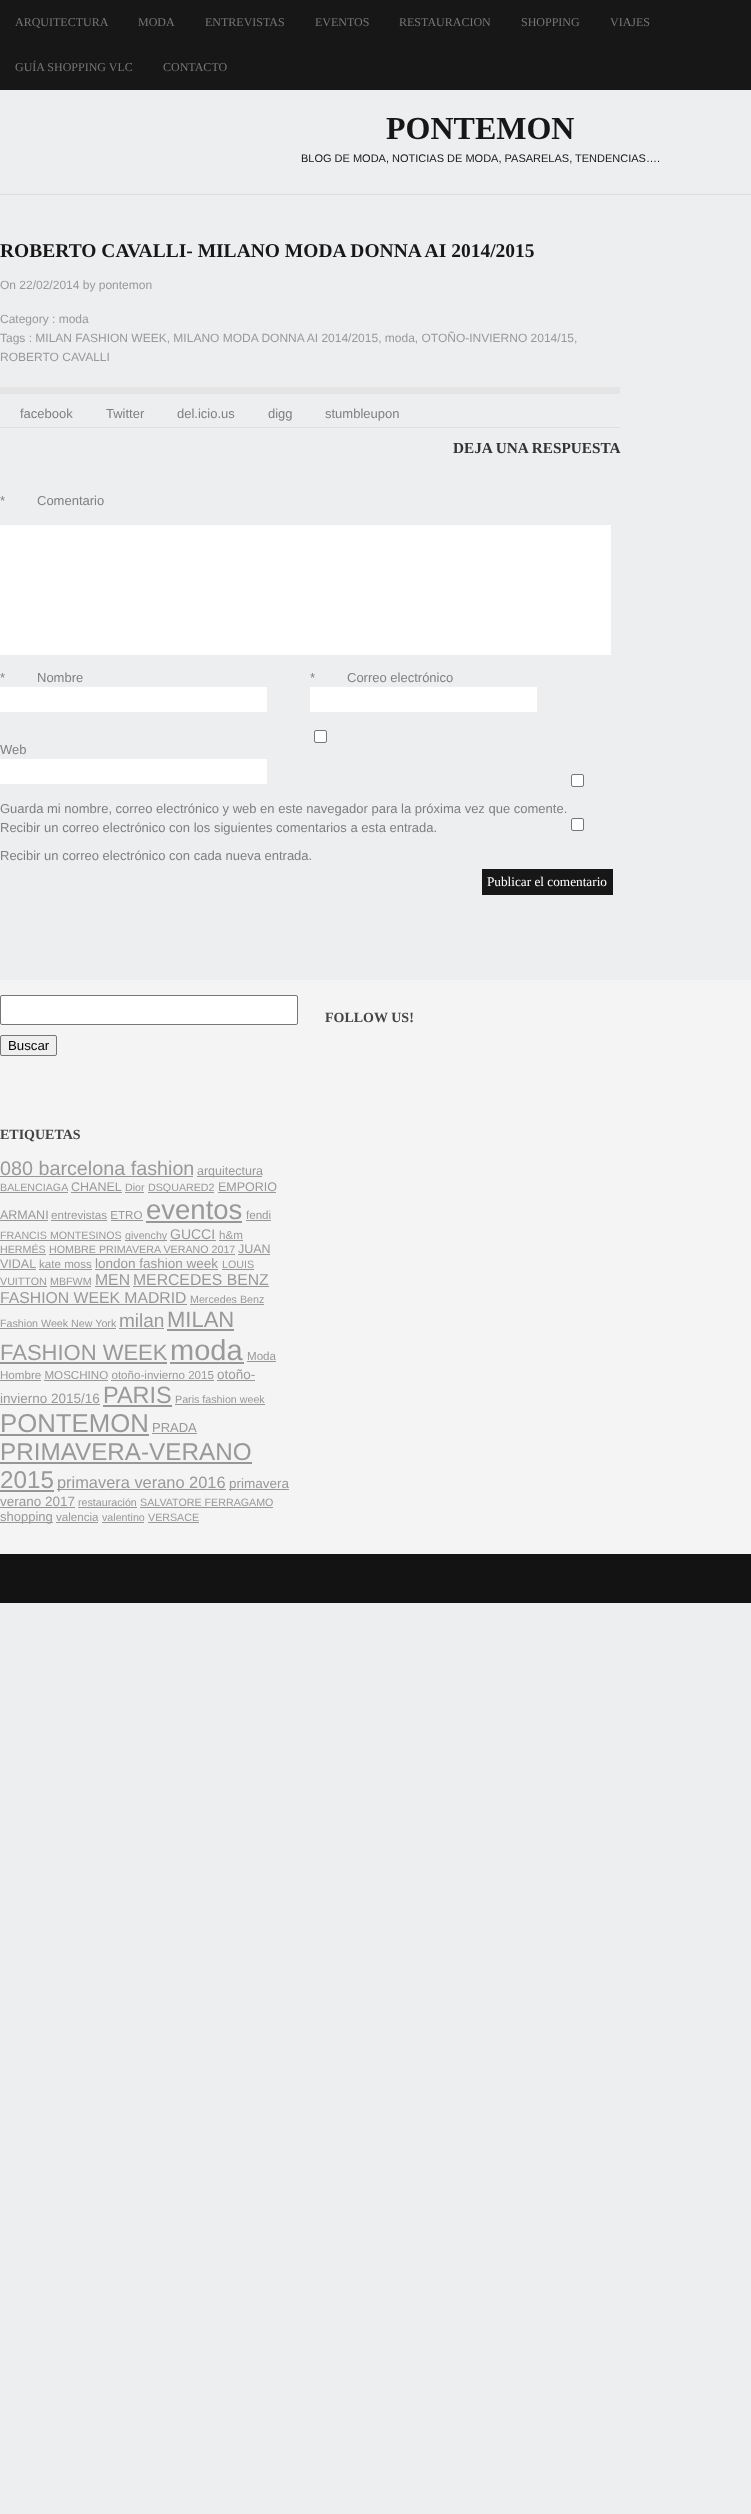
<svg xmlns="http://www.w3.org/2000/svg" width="751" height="2514">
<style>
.a{font:12px Liberation Serif;fill:#777}
.b{font:bold 32px Liberation Serif;fill:#171717}
.c{font:11px Liberation Sans;fill:#171717}
.d{font:bold 19.5px Liberation Serif;fill:#171717}
.e{font:12px Liberation Sans;fill:#999}
.f{font:13px Liberation Sans;fill:#7f7f7f}
.g{font:bold 15.25px Liberation Serif;fill:#333}
.h{font:13.25px Liberation Serif;fill:#fff}
.i{font:bold 14px Liberation Serif;fill:#444}
.j{font:13.25px Liberation Sans;fill:#000}
.k{font:19.75px Liberation Sans;fill:#999}
.l{font:12.5px Liberation Sans;fill:#999}
.m{font:10.7px Liberation Sans;fill:#999}
.n{font:11.6px Liberation Sans;fill:#999}
.o{font:27.5px Liberation Sans;fill:#999}
.p{font:14px Liberation Sans;fill:#999}
.q{font:13.5px Liberation Sans;fill:#999}
.r{font:15.75px Liberation Sans;fill:#999}
.s{font:19px Liberation Sans;fill:#999}
.t{font:22px Liberation Sans;fill:#999}
.u{font:29px Liberation Sans;fill:#999}
.v{font:23.5px Liberation Sans;fill:#999}
.w{font:25.75px Liberation Sans;fill:#999}
.x{font:13px Liberation Sans;fill:#999}
.y{font:24.25px Liberation Sans;fill:#999}
.z{font:16.4px Liberation Sans;fill:#999}
</style>
<rect width="100%" height="100%" fill="#edeef0"/>
<path fill="#171717" d="M0 0h751v90H0z"/>
<path fill="#dedede" d="M0 194h751v1H0z"/>
<path fill="#e5e5e5" d="M0 387h620v7H0z"/>
<path fill="#dfdfdf" d="M0 427h620v1H0z"/>
<path fill="#fff" d="M0 525h611v130H0z"/>
<path fill="#fff" d="M0 687h267v25H0z"/>
<path fill="#fff" d="M310 687h227v25H310z"/>
<path fill="#fff" d="M0 759h267v25H0z"/>
<rect fill="#fff" stroke="#767676" x="314.5" y="730.5" width="12" height="12" rx="1.5"/>
<rect fill="#fff" stroke="#767676" x="571.5" y="774.5" width="12" height="12" rx="1.5"/>
<rect fill="#fff" stroke="#767676" x="571.5" y="818.5" width="12" height="12" rx="1.5"/>
<path fill="#171717" d="M482 869h131v26H482z"/>
<path fill="#f4f4f4" d="M0 980h751v574H0z"/>
<rect fill="#fff" stroke="#767676" x="0.5" y="995.5" width="297" height="29" rx="1.5"/>
<rect fill="#efefef" stroke="#767676" x="0.5" y="1035.5" width="56" height="20" rx="1.5"/>
<path fill="#979797" d="M0 1176h193v1H0z"/>
<path fill="#979797" d="M197 1176h65v1H197z"/>
<path fill="#979797" d="M0 1192h68v1H0z"/>
<path fill="#979797" d="M71 1192h51v1H71z"/>
<path fill="#979797" d="M125 1192h19v1H125z"/>
<path fill="#979797" d="M148 1192h66v1H148z"/>
<path fill="#979797" d="M218 1192h58v1H218z"/>
<path fill="#979797" d="M0 1220h48v1H0z"/>
<path fill="#979797" d="M51 1220h56v1H51z"/>
<path fill="#979797" d="M146 1221h96v2H146z"/>
<path fill="#979797" d="M246 1220h25v1H246z"/>
<path fill="#979797" d="M111 1220h32v1H111z"/>
<path fill="#979797" d="M0 1240h121v1H0z"/>
<path fill="#979797" d="M125 1240h42v1H125z"/>
<path fill="#979797" d="M170 1240h46v1H170z"/>
<path fill="#979797" d="M219 1240h24v1H219z"/>
<path fill="#979797" d="M0 1254h46v1H0z"/>
<path fill="#979797" d="M49 1254h186v1H49z"/>
<path fill="#979797" d="M238 1254h32v1H238z"/>
<path fill="#979797" d="M0 1269h36v1H0z"/>
<path fill="#979797" d="M39 1269h53v1H39z"/>
<path fill="#979797" d="M95 1269h123v1H95z"/>
<path fill="#979797" d="M222 1269h32v1H222z"/>
<path fill="#979797" d="M0 1286h47v1H0z"/>
<path fill="#979797" d="M50 1286h41v1H50z"/>
<path fill="#979797" d="M95 1286h35v1H95z"/>
<path fill="#979797" d="M133 1286h136v1H133z"/>
<path fill="#979797" d="M0 1304h187v1H0z"/>
<path fill="#979797" d="M190 1304h74v1H190z"/>
<path fill="#979797" d="M0 1328h116v1H0z"/>
<path fill="#979797" d="M119 1328h45v1H119z"/>
<path fill="#979797" d="M167 1329h67v2H167z"/>
<path fill="#979797" d="M0 1362h167v2H0z"/>
<path fill="#979797" d="M170 1362h74v2H170z"/>
<path fill="#979797" d="M247 1361h29v1H247z"/>
<path fill="#979797" d="M0 1380h41v1H0z"/>
<path fill="#979797" d="M217 1380h38v1H217z"/>
<path fill="#979797" d="M44 1380h64v1H44z"/>
<path fill="#979797" d="M111 1380h103v1H111z"/>
<path fill="#979797" d="M0 1404h100v1H0z"/>
<path fill="#979797" d="M103 1405h69v2H103z"/>
<path fill="#979797" d="M175 1404h90v1H175z"/>
<path fill="#979797" d="M0 1434h149v2H0z"/>
<path fill="#979797" d="M152 1433h45v1H152z"/>
<path fill="#979797" d="M0 1462h252v2H0z"/>
<path fill="#979797" d="M0 1490h54v2H0z"/>
<path fill="#979797" d="M57 1489h169v1H57z"/>
<path fill="#979797" d="M229 1489h60v1H229z"/>
<path fill="#979797" d="M0 1507h75v1H0z"/>
<path fill="#979797" d="M78 1507h59v1H78z"/>
<path fill="#979797" d="M140 1507h133v1H140z"/>
<path fill="#979797" d="M0 1522h53v1H0z"/>
<path fill="#979797" d="M56 1522h42v1H56z"/>
<path fill="#979797" d="M102 1522h42v1H102z"/>
<path fill="#979797" d="M148 1522h51v1H148z"/>
<path fill="#131313" d="M0 1554h751v49H0z"/>
<text class="a" x="15" y="26">ARQUITECTURA</text>
<text class="a" x="138" y="26">MODA</text>
<text class="a" x="205" y="26">ENTREVISTAS</text>
<text class="a" x="315" y="26">EVENTOS</text>
<text class="a" x="399" y="26">RESTAURACION</text>
<text class="a" x="521" y="26">SHOPPING</text>
<text class="a" x="610" y="26">VIAJES</text>
<text class="a" x="15" y="71">GUÍA SHOPPING VLC</text>
<text class="a" x="163" y="71">CONTACTO</text>
<text class="b" x="386" y="139">PONTEMON</text>
<text class="c" x="301" y="162">BLOG DE MODA, NOTICIAS DE MODA, PASARELAS, TENDENCIAS….</text>
<text class="d" x="0" y="257">ROBERTO CAVALLI- MILANO MODA DONNA AI 2014/2015</text>
<text class="e" x="0" y="289">On 22/02/2014 by pontemon</text>
<text class="e" x="0" y="323">Category : moda</text>
<text class="e" x="0" y="342">Tags : MILAN FASHION WEEK, MILANO MODA DONNA AI 2014/2015, moda, OTOÑO-INVIERNO 2014/15,</text>
<text class="e" x="0" y="361">ROBERTO CAVALLI</text>
<text class="f" x="20" y="418">facebook</text>
<text class="f" x="106" y="418">Twitter</text>
<text class="f" x="177" y="418">del.icio.us</text>
<text class="f" x="268" y="418">digg</text>
<text class="f" x="325" y="418">stumbleupon</text>
<text class="g" x="453" y="453">DEJA UNA RESPUESTA</text>
<text class="f" x="0" y="505">*</text>
<text class="f" x="37" y="505">Comentario</text>
<text class="f" x="0" y="682">*</text>
<text class="f" x="37" y="682">Nombre</text>
<text class="f" x="310" y="682">*</text>
<text class="f" x="347" y="682">Correo electrónico</text>
<text class="f" x="0" y="754">Web</text>
<text class="f" x="0" y="813">Guarda mi nombre, correo electrónico y web en este navegador para la próxima vez que comente.</text>
<text class="f" x="0" y="832">Recibir un correo electrónico con los siguientes comentarios a esta entrada.</text>
<text class="f" x="0" y="860">Recibir un correo electrónico con cada nueva entrada.</text>
<text class="h" x="487" y="886">Publicar el comentario</text>
<text class="i" x="325" y="1022">FOLLOW US!</text>
<text class="j" x="8" y="1050">Buscar</text>
<text class="i" x="0" y="1139">ETIQUETAS</text>
<text class="k" x="0" y="1175">080 barcelona fashion</text>
<text class="l" x="197" y="1175">arquitectura</text>
<text class="m" x="0" y="1191">BALENCIAGA</text>
<text class="l" x="71" y="1191">CHANEL</text>
<text class="m" x="125" y="1191">Dior</text>
<text class="m" x="148" y="1191">DSQUARED2</text>
<text class="l" x="218" y="1191">EMPORIO</text>
<text class="l" x="0" y="1219">ARMANI</text>
<text class="n" x="51" y="1219">entrevistas ETRO</text>
<text class="o" x="146" y="1219">eventos</text>
<text class="n" x="246" y="1219">fendi</text>
<text class="m" x="0" y="1239">FRANCIS MONTESINOS</text>
<text class="m" x="125" y="1239">givenchy</text>
<text class="p" x="170" y="1239">GUCCI</text>
<text class="n" x="219" y="1239">h&amp;m</text>
<text class="m" x="0" y="1253">HERMÉS</text>
<text class="m" x="49" y="1253">HOMBRE PRIMAVERA VERANO 2017</text>
<text class="l" x="238" y="1253">JUAN</text>
<text class="l" x="0" y="1268">VIDAL</text>
<text class="n" x="39" y="1268">kate moss</text>
<text class="q" x="95" y="1268">london fashion week</text>
<text class="m" x="222" y="1268">LOUIS</text>
<text class="m" x="0" y="1285">VUITTON</text>
<text class="m" x="50" y="1285">MBFWM</text>
<text class="r" x="95" y="1285">MEN</text>
<text class="r" x="133" y="1285">MERCEDES BENZ</text>
<text class="r" x="0" y="1303">FASHION WEEK MADRID</text>
<text class="m" x="190" y="1303">Mercedes Benz</text>
<text class="m" x="0" y="1327">Fashion Week New York</text>
<text class="s" x="119" y="1327">milan</text>
<text class="t" x="167" y="1327">MILAN</text>
<text class="t" x="0" y="1360">FASHION WEEK</text>
<text class="u" x="170" y="1360">moda</text>
<text class="n" x="247" y="1360">Moda</text>
<text class="n" x="0" y="1379">Hombre MOSCHINO otoño-invierno 2015</text>
<text class="q" x="217" y="1379">otoño-</text>
<text class="q" x="0" y="1403">invierno 2015/16</text>
<text class="v" x="103" y="1403">PARIS</text>
<text class="m" x="175" y="1403">Paris fashion week</text>
<text class="w" x="0" y="1432">PONTEMON</text>
<text class="x" x="152" y="1432">PRADA</text>
<text class="y" x="0" y="1460">PRIMAVERA-VERANO</text>
<text class="y" x="0" y="1488">2015</text>
<text class="z" x="57" y="1488">primavera verano 2016</text>
<text class="q" x="229" y="1488">primavera</text>
<text class="q" x="0" y="1506">verano 2017</text>
<text class="m" x="78" y="1506">restauración</text>
<text class="m" x="140" y="1506">SALVATORE FERRAGAMO</text>
<text class="x" x="0" y="1521">shopping</text>
<text class="n" x="56" y="1521">valencia</text>
<text class="m" x="102" y="1521">valentino</text>
<text class="m" x="148" y="1521">VERSACE</text>
</svg>
